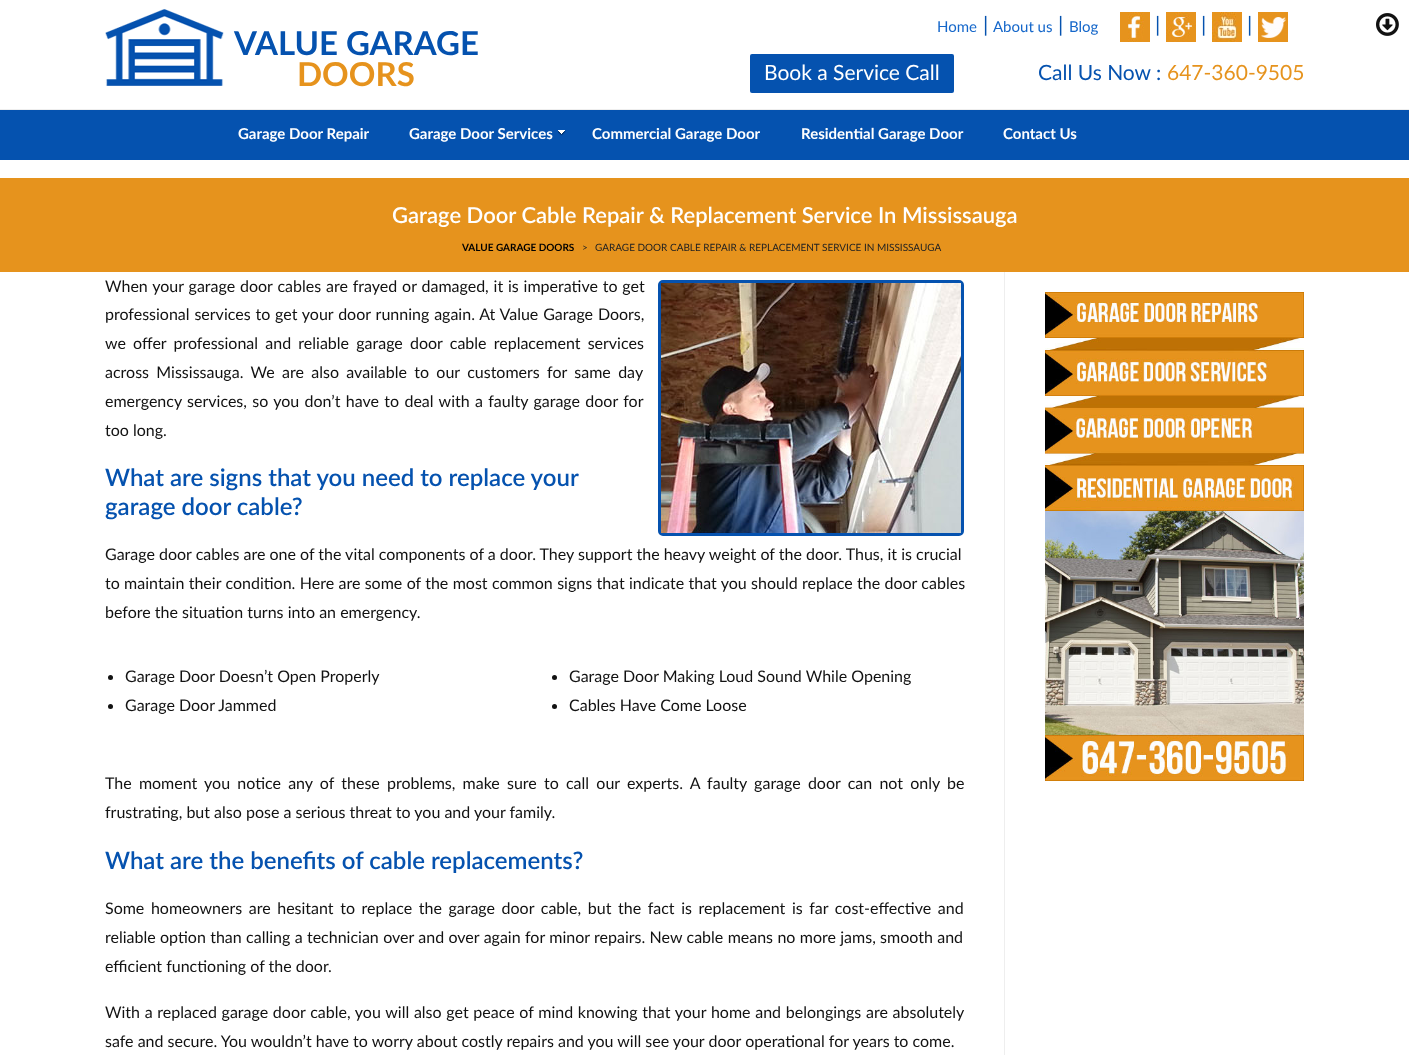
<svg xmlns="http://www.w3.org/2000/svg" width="1409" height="1055">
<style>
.a{font:bold 33px Lato;fill:#0552af}
.b{font:bold 33px Lato;fill:#e6931d}
.c{font:15px Lato;fill:#1567ca}
.d{font:21px Lato;fill:#0552af}
.e{font:21px Lato;fill:#fff}
.f{font:21px Lato;fill:#e6931d}
.g{font:bold 15px Lato;fill:#fff}
.h{font:600 22px Lato;fill:#fff}
.i{font:bold 10px Lato;fill:#000}
.j{font:10px Lato;fill:#222}
.k{font:16px Lato;fill:#121212}
.l{font:600 24px Lato;fill:#0552af}
</style>
<rect width="100%" height="100%" fill="#fff"/>
<image href="1.png" x="105" y="9" width="119" height="77"/>
<image href="2.png" x="1120" y="12" width="30" height="30"/>
<image href="3.png" x="1166" y="12" width="30" height="30"/>
<image href="4.png" x="1212" y="12" width="30" height="30"/>
<image href="5.png" x="1258" y="12" width="30" height="30"/>
<rect fill="#0552af" x="750" y="54" width="204" height="39" rx="2"/>
<path fill="#0552af" d="M0 110h1409v50H0z"/>
<path fill="#eee" d="M0 109h1409v1H0z"/>
<image href="6.png" x="558" y="130" width="8" height="6"/>
<path fill="#e6931d" d="M0 178h1409v94H0z"/>
<path fill="#eee" d="M1004 272h1v783H1004z"/>
<rect fill="none" stroke="#0552af" stroke-width="3" x="659.5" y="281.5" width="303" height="253" rx="3.5"/>
<image href="7.png" x="661" y="283" width="300" height="250"/>
<circle fill="#121212" cx="110.5" cy="677.5" r="2.5"/>
<circle fill="#121212" cx="110.5" cy="706.5" r="2.5"/>
<circle fill="#121212" cx="554.5" cy="677.5" r="2.5"/>
<circle fill="#121212" cx="554.5" cy="706.5" r="2.5"/>
<image href="8.png" x="1045" y="292" width="259" height="489"/>
<image href="9.png" x="1376" y="13" width="23" height="23"/>
<text class="a" x="234" y="55">VALUE GARAGE</text>
<text class="b" x="297" y="86">DOORS</text>
<text class="c" x="937" y="32">Home</text>
<text class="d" x="983" y="32">|</text>
<text class="c" x="993" y="32">About us</text>
<text class="d" x="1058" y="32">|</text>
<text class="c" x="1069" y="32">Blog</text>
<text class="d" x="1155" y="32">|</text>
<text class="d" x="1201" y="32">|</text>
<text class="d" x="1247" y="32">|</text>
<text class="e" x="764" y="80">Book a Service Call</text>
<text class="d" x="1038" y="80">Call Us Now :</text>
<text class="f" x="1167" y="80">647-360-9505</text>
<text class="g" x="238" y="139">Garage Door Repair</text>
<text class="g" x="409" y="139">Garage Door Services</text>
<text class="g" x="592" y="139">Commercial Garage Door</text>
<text class="g" x="801" y="139">Residential Garage Door</text>
<text class="g" x="1003" y="139">Contact Us</text>
<text class="h" x="392" y="223">Garage Door Cable Repair &amp; Replacement Service In Mississauga</text>
<text class="i" x="462" y="251">VALUE GARAGE DOORS</text>
<text class="j" x="582" y="251">&gt;</text>
<text class="j" x="595" y="251">GARAGE DOOR CABLE REPAIR &amp; REPLACEMENT SERVICE IN MISSISSAUGA</text>
<text class="k" x="105" y="292" word-spacing="0.75">When your garage door cables are frayed or damaged, it is imperative to get</text>
<text class="k" x="105" y="320" word-spacing="0.75">professional services to get your door running again. At Value Garage Doors,</text>
<text class="k" x="105" y="349" word-spacing="3.1">we offer professional and reliable garage door cable replacement services</text>
<text class="k" x="105" y="378" word-spacing="3.25">across Mississauga. We are also available to our customers for same day</text>
<text class="k" x="105" y="407" word-spacing="1.25">emergency services, so you don’t have to deal with a faulty garage door for</text>
<text class="k" x="105" y="436">too long.</text>
<text class="l" x="105" y="486">What are signs that you need to replace your</text>
<text class="l" x="105" y="515">garage door cable?</text>
<text class="k" x="105" y="560">Garage door cables are one of the vital components of a door. They support the heavy weight of the door. Thus, it is crucial</text>
<text class="k" x="105" y="589" word-spacing="0.25">to maintain their condition. Here are some of the most common signs that indicate that you should replace the door cables</text>
<text class="k" x="105" y="618">before the situation turns into an emergency.</text>
<text class="k" x="125" y="682">Garage Door Doesn’t Open Properly</text>
<text class="k" x="125" y="711">Garage Door Jammed</text>
<text class="k" x="569" y="682">Garage Door Making Loud Sound While Opening</text>
<text class="k" x="569" y="711">Cables Have Come Loose</text>
<text class="k" x="105" y="789" word-spacing="3.1">The moment you notice any of these problems, make sure to call our experts. A faulty garage door can not only be</text>
<text class="k" x="105" y="818">frustrating, but also pose a serious threat to you and your family.</text>
<text class="l" x="105" y="869">What are the benefits of cable replacements?</text>
<text class="k" x="105" y="914" word-spacing="2.5">Some homeowners are hesitant to replace the garage door cable, but the fact is replacement is far cost-effective and</text>
<text class="k" x="105" y="943" word-spacing="0.25">reliable option than calling a technician over and over again for minor repairs. New cable means no more jams, smooth and</text>
<text class="k" x="105" y="972">efficient functioning of the door.</text>
<text class="k" x="105" y="1018" word-spacing="0.6">With a replaced garage door cable, you will also get peace of mind knowing that your home and belongings are absolutely</text>
<text class="k" x="105" y="1047">safe and secure. You wouldn’t have to worry about costly repairs and you will see your door operational for years to come.</text>
</svg>
